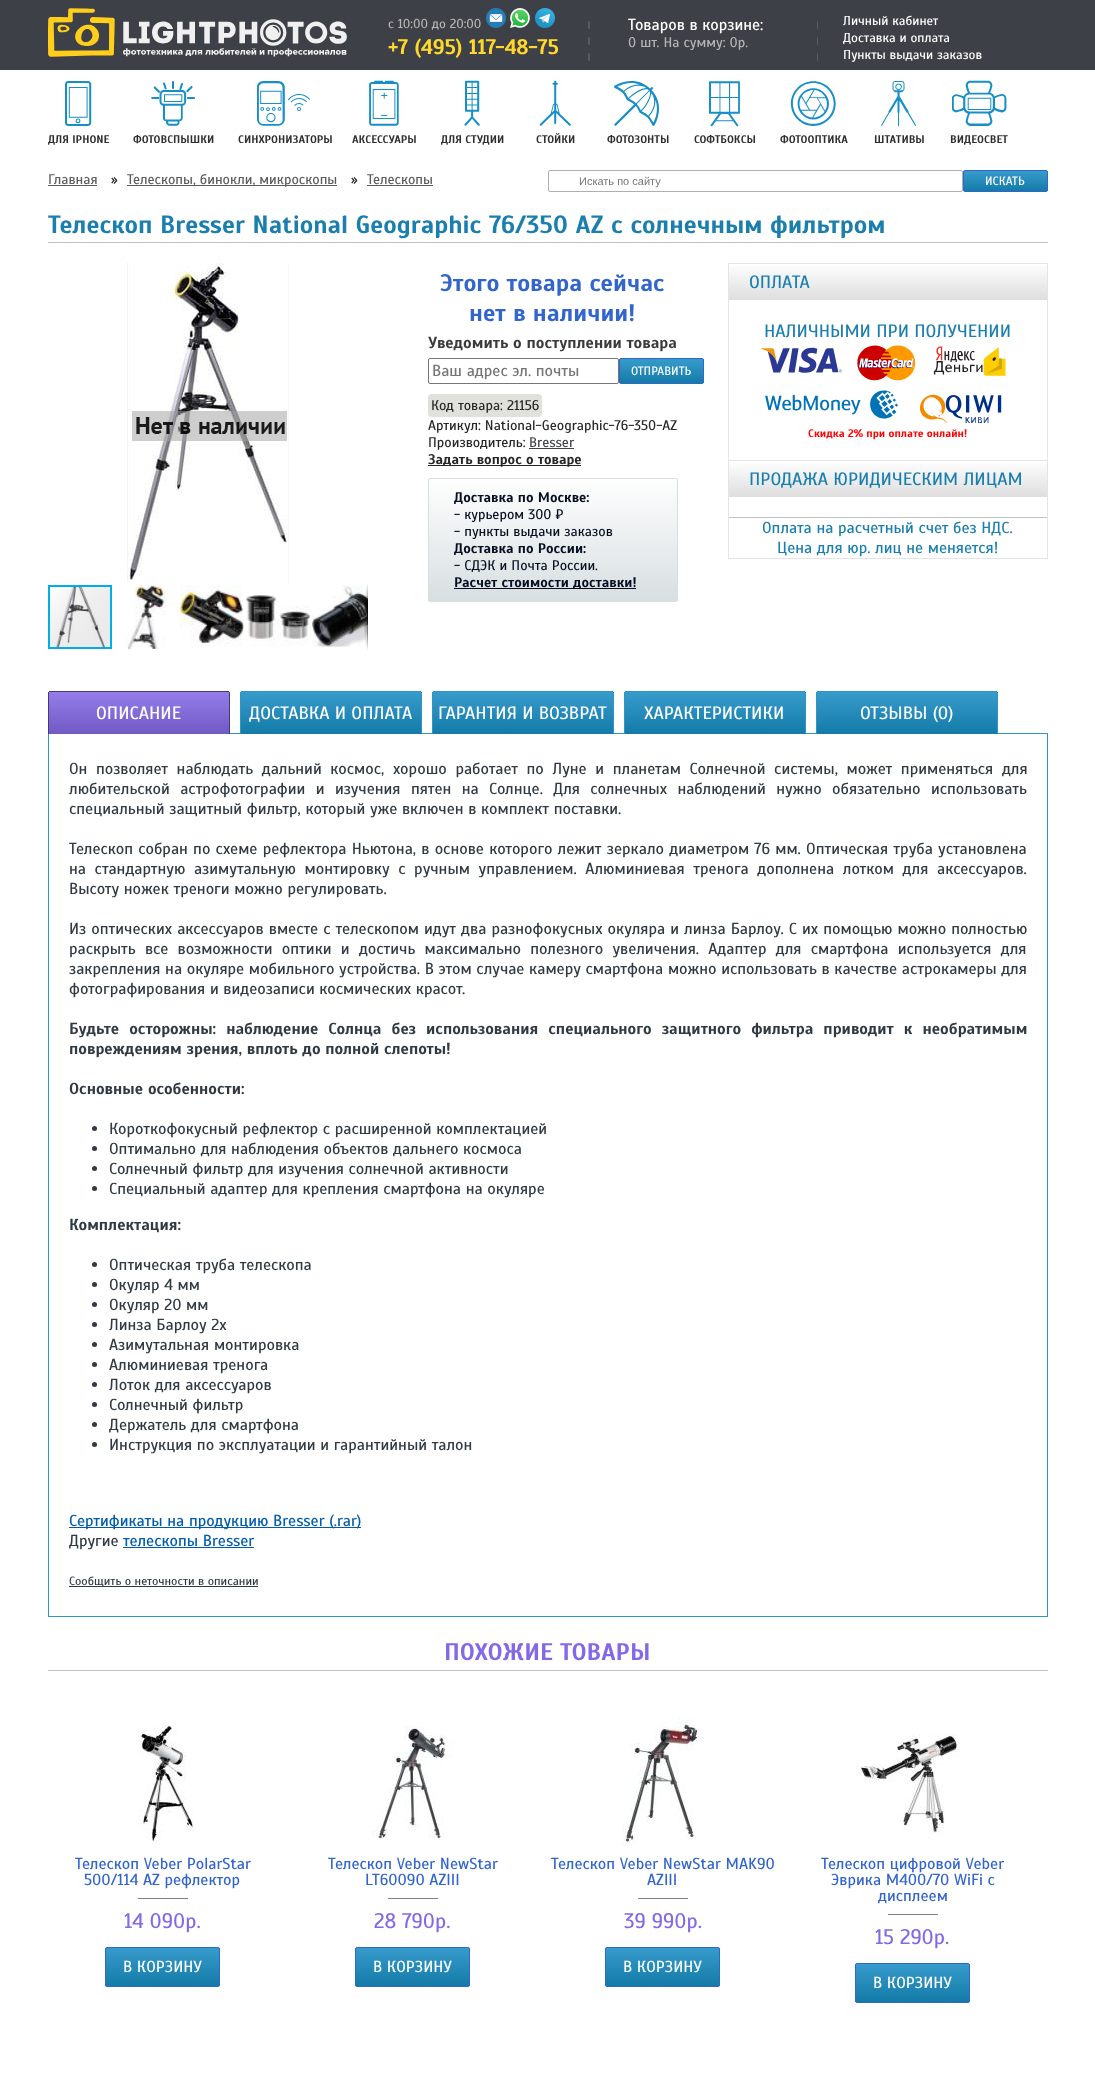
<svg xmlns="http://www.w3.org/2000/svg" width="1095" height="2075">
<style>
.a{font:13px Scada;fill:#b5b5b5}
.b{font:bold 21px Scada;fill:#ffd82b}
.c{font:16px Scada;fill:#fff}
.d{font:14px Scada;fill:#b5b5b5}
.e{font:13px Scada;fill:#fff}
.f{font:bold 11px Scada;fill:#2f2f2f}
.g{font:14px Scada;fill:#5f5c5c}
.h{font:14px Scada;fill:#212121}
.i{font:11px Liberation Sans;fill:#757575}
.j{font:12px Scada;fill:#fff}
.k{font:bold 25px Scada;fill:#1a7fae}
.l{font:bold 24px Scada;fill:#36c}
.m{font:bold 16px Scada;fill:#3b3b3b}
.n{font:16px Scada;fill:#757575}
.o{font:14px Scada;fill:#282727}
.p{font:14px Scada;fill:#40434a}
.q{font:bold 14px Scada;fill:#282727}
.r{font:bold 14px Scada;fill:#060f21}
.s{font:14px Scada;fill:#060f21}
.t{font:18px Scada;fill:#1a7fae}
.u{font:bold 11px Scada;fill:#f00}
.v{font:16px Scada;fill:#1a7fae}
.w{font:18px Scada;fill:#fff}
.x{font:16px Scada;fill:#313a43}
.y{font:bold 16px Scada;fill:#313a43}
.z{font:16px Scada;fill:#005dad}
.a1{font:12px Scada;fill:#313a43}
.b1{font:bold 24px Scada;fill:#8368e7}
.c1{font:16px Scada;fill:#36c}
.d1{font:21px Scada;fill:#8368e7}
</style>
<defs>
<clipPath id="clip1"><rect x="963" y="170" width="85" height="22" rx="2"/></clipPath>
<linearGradient id="g1" gradientUnits="userSpaceOnUse" x1="1006" y1="171" x2="1006" y2="191"><stop offset="0" stop-color="#379ccb"/><stop offset="1" stop-color="#147aa8"/></linearGradient>
<radialGradient id="g2" gradientUnits="userSpaceOnUse" cx="0" cy="0" r="1" gradientTransform="matrix(5 0 0 34 368 617)"><stop offset="0" stop-color="#000" stop-opacity="0.4"/><stop offset="1" stop-color="#000" stop-opacity="0"/></radialGradient>
<linearGradient id="g3" gradientUnits="userSpaceOnUse" x1="368" y1="583" x2="368" y2="651"><stop offset="0" stop-color="#000" stop-opacity="0"/><stop offset="0.25" stop-color="#000" stop-opacity="0.2"/><stop offset="0.75" stop-color="#000" stop-opacity="0.3"/><stop offset="1" stop-color="#000" stop-opacity="0"/></linearGradient>
<clipPath id="clip2"><rect x="619" y="358" width="85" height="26" rx="2"/></clipPath>
<linearGradient id="g4" gradientUnits="userSpaceOnUse" x1="662" y1="359" x2="662" y2="383"><stop offset="0" stop-color="#379ccb"/><stop offset="1" stop-color="#147aa8"/></linearGradient>
<clipPath id="clip3"><rect x="428" y="478" width="250" height="124" rx="2"/></clipPath>
<linearGradient id="g5" gradientUnits="userSpaceOnUse" x1="553" y1="479" x2="553" y2="601"><stop offset="0" stop-color="#fefefe"/><stop offset="1" stop-color="#d8dfe1"/></linearGradient>
<linearGradient id="g6" gradientUnits="userSpaceOnUse" x1="888" y1="264" x2="888" y2="300"><stop offset="0" stop-color="#fefefe"/><stop offset="1" stop-color="#dedede"/></linearGradient>
<linearGradient id="g7" gradientUnits="userSpaceOnUse" x1="888" y1="461" x2="888" y2="497"><stop offset="0" stop-color="#fefefe"/><stop offset="1" stop-color="#dedede"/></linearGradient>
<linearGradient id="g8" gradientUnits="userSpaceOnUse" x1="139" y1="692" x2="139" y2="734"><stop offset="0" stop-color="#947de9"/><stop offset="1" stop-color="#715ac6"/></linearGradient>
<linearGradient id="g9" gradientUnits="userSpaceOnUse" x1="331" y1="692" x2="331" y2="734"><stop offset="0" stop-color="#379ccb"/><stop offset="1" stop-color="#147aa8"/></linearGradient>
<linearGradient id="g10" gradientUnits="userSpaceOnUse" x1="523" y1="692" x2="523" y2="734"><stop offset="0" stop-color="#379ccb"/><stop offset="1" stop-color="#147aa8"/></linearGradient>
<linearGradient id="g11" gradientUnits="userSpaceOnUse" x1="715" y1="692" x2="715" y2="734"><stop offset="0" stop-color="#379ccb"/><stop offset="1" stop-color="#147aa8"/></linearGradient>
<linearGradient id="g12" gradientUnits="userSpaceOnUse" x1="907" y1="692" x2="907" y2="734"><stop offset="0" stop-color="#379ccb"/><stop offset="1" stop-color="#147aa8"/></linearGradient>
<clipPath id="clip4"><rect x="105" y="1947" width="115" height="40" rx="2"/></clipPath>
<linearGradient id="g13" gradientUnits="userSpaceOnUse" x1="163" y1="1948" x2="163" y2="1986"><stop offset="0" stop-color="#379ccb"/><stop offset="1" stop-color="#147aa8"/></linearGradient>
<clipPath id="clip5"><rect x="355" y="1947" width="115" height="40" rx="2"/></clipPath>
<linearGradient id="g14" gradientUnits="userSpaceOnUse" x1="413" y1="1948" x2="413" y2="1986"><stop offset="0" stop-color="#379ccb"/><stop offset="1" stop-color="#147aa8"/></linearGradient>
<clipPath id="clip6"><rect x="605" y="1947" width="115" height="40" rx="2"/></clipPath>
<linearGradient id="g15" gradientUnits="userSpaceOnUse" x1="663" y1="1948" x2="663" y2="1986"><stop offset="0" stop-color="#379ccb"/><stop offset="1" stop-color="#147aa8"/></linearGradient>
<clipPath id="clip7"><rect x="855" y="1963" width="115" height="40" rx="2"/></clipPath>
<linearGradient id="g16" gradientUnits="userSpaceOnUse" x1="913" y1="1964" x2="913" y2="2002"><stop offset="0" stop-color="#379ccb"/><stop offset="1" stop-color="#147aa8"/></linearGradient>
</defs>
<rect width="100%" height="100%" fill="#fff"/>
<path fill="#3d4046" d="M0 0h1095v70H0z"/>
<image href="1.png" x="48" y="8" width="299" height="49"/>
<image href="2.png" x="486" y="8" width="20" height="20"/>
<image href="3.png" x="510" y="8" width="20" height="20"/>
<image href="4.png" x="535" y="8" width="20" height="20"/>
<image href="5.png" x="588" y="21" width="230" height="40"/>
<image href="6.png" x="65" y="81" width="27" height="45"/>
<image href="7.png" x="151" y="81" width="44" height="45"/>
<image href="8.png" x="257" y="81" width="53" height="45"/>
<image href="9.png" x="369" y="80" width="30" height="46"/>
<image href="10.png" x="464" y="80" width="16" height="46"/>
<image href="11.png" x="539" y="80" width="32" height="46"/>
<image href="12.png" x="614" y="81" width="45" height="45"/>
<image href="13.png" x="709" y="81" width="31" height="46"/>
<image href="14.png" x="790" y="81" width="46" height="45"/>
<image href="15.png" x="881" y="81" width="35" height="46"/>
<image href="16.png" x="952" y="80" width="55" height="46"/>
<path fill="#5f5c5c" d="M48 185h49v1H48z"/>
<path fill="#5f5c5c" d="M127 185h210v1H127z"/>
<path fill="#5f5c5c" d="M367 185h66v1H367z"/>
<rect fill="none" stroke="#afafaf" x="548.5" y="170.5" width="414" height="21" rx="1.5"/>
<g clip-path="url(#clip1)">
<path fill="url(#g1)" d="M963 171h85v20H963z"/>
</g>
<rect fill="none" stroke="#36c" x="963.5" y="170.5" width="84" height="21" rx="1.5"/>
<path fill="#c3c3c3" d="M48 242h1000v1H48z"/>
<image href="17.png" x="127" y="263" width="162" height="320"/>
<image href="18.png" x="132" y="411" width="155" height="30"/>
<image href="22.png" x="312" y="585" width="56" height="64"/>
<path fill="url(#g2)" d="M363 583h5v68H363z"/>
<path fill="url(#g3)" d="M367 583h1v68H367z"/>
<image href="23.png" x="50" y="587" width="60" height="60"/>
<path fill="none" stroke="#00afea" stroke-width="2" d="M49 586h62v62H49z"/>
<image href="19.png" x="114" y="585" width="64" height="64"/>
<image href="20.png" x="180" y="585" width="64" height="64"/>
<image href="21.png" x="246" y="585" width="64" height="64"/>
<rect fill="none" stroke="#767676" x="428.5" y="358.5" width="190" height="25" rx="1.5"/>
<g clip-path="url(#clip2)">
<path fill="url(#g4)" d="M619 359h85v24H619z"/>
</g>
<rect fill="none" stroke="#36c" x="619.5" y="358.5" width="84" height="25" rx="1.5"/>
<rect fill="#e1e1dc" x="428" y="394" width="114" height="23" rx="4"/>
<path fill="#40434a" d="M529 448h45v1H529z"/>
<path fill="#282727" d="M428 465h153v1H428z"/>
<g clip-path="url(#clip3)">
<path fill="url(#g5)" d="M428 479h250v122H428z"/>
</g>
<rect fill="none" stroke="#d8dfe1" x="428.5" y="478.5" width="249" height="123" rx="1.5"/>
<path fill="#060f21" d="M454 588h182v1H454z"/>
<path fill="none" stroke="#e4e4e4" d="M728.5 263.5h319v197H728.5z"/>
<path fill="url(#g6)" d="M729 266h318v34H729z"/>
<image href="24.png" x="761" y="345" width="245" height="79"/>
<path fill="#e4e4e4" d="M1047 461h1v98H1047z"/>
<path fill="#e4e4e4" d="M728 558h320v1H728z"/>
<path fill="#e4e4e4" d="M728 461h1v98H728z"/>
<path fill="url(#g7)" d="M729 463h318v34H729z"/>
<path fill="#c3c3c3" d="M729 517h318v1H729z"/>
<path fill="#3095c4" d="M230 733h818v1H230z"/>
<path fill="url(#g8)" d="M49 692h180v42H49z"/>
<path fill="#46387a" d="M49 691h180v1H49z"/>
<path fill="#46387a" d="M229 692h1v42H229z"/>
<path fill="#46387a" d="M48 692h1v42H48z"/>
<path fill="url(#g9)" d="M241 692h180v42H241z"/>
<path fill="#3095c4" d="M241 691h180v1H241z"/>
<path fill="#3095c4" d="M421 692h1v42H421z"/>
<path fill="#3095c4" d="M240 692h1v42H240z"/>
<path fill="url(#g10)" d="M433 692h180v42H433z"/>
<path fill="#3095c4" d="M433 691h180v1H433z"/>
<path fill="#3095c4" d="M613 692h1v42H613z"/>
<path fill="#3095c4" d="M432 692h1v42H432z"/>
<path fill="url(#g11)" d="M625 692h180v42H625z"/>
<path fill="#3095c4" d="M625 691h180v1H625z"/>
<path fill="#3095c4" d="M805 692h1v42H805z"/>
<path fill="#3095c4" d="M624 692h1v42H624z"/>
<path fill="url(#g12)" d="M817 692h180v42H817z"/>
<path fill="#3095c4" d="M817 691h180v1H817z"/>
<path fill="#3095c4" d="M997 692h1v42H997z"/>
<path fill="#3095c4" d="M816 692h1v42H816z"/>
<path fill="#3095c4" d="M1047 734h1v883H1047z"/>
<path fill="#3095c4" d="M48 1616h1000v1H48z"/>
<path fill="#3095c4" d="M48 734h1v883H48z"/>
<circle fill="#313a43" cx="94.5" cy="1128.5" r="2.5"/>
<circle fill="#313a43" cx="94.5" cy="1148.5" r="2.5"/>
<circle fill="#313a43" cx="94.5" cy="1168.5" r="2.5"/>
<circle fill="#313a43" cx="94.5" cy="1188.5" r="2.5"/>
<circle fill="#313a43" cx="94.5" cy="1264.5" r="2.5"/>
<circle fill="#313a43" cx="94.5" cy="1284.5" r="2.5"/>
<circle fill="#313a43" cx="94.5" cy="1304.5" r="2.5"/>
<circle fill="#313a43" cx="94.5" cy="1324.5" r="2.5"/>
<circle fill="#313a43" cx="94.5" cy="1344.5" r="2.5"/>
<circle fill="#313a43" cx="94.5" cy="1364.5" r="2.5"/>
<circle fill="#313a43" cx="94.5" cy="1384.5" r="2.5"/>
<circle fill="#313a43" cx="94.5" cy="1404.5" r="2.5"/>
<circle fill="#313a43" cx="94.5" cy="1424.5" r="2.5"/>
<circle fill="#313a43" cx="94.5" cy="1444.5" r="2.5"/>
<path fill="#005dad" d="M69 1527h292v1H69z"/>
<path fill="#005dad" d="M123 1547h131v1H123z"/>
<path fill="#313a43" d="M69 1586h189v1H69z"/>
<path fill="#c3c3c3" d="M48 1670h1000v1H48z"/>
<image href="25.png" x="138" y="1725" width="56" height="119"/>
<path fill="#808080" d="M138 1898h50v1H138z"/>
<g clip-path="url(#clip4)">
<path fill="url(#g13)" d="M105 1948h115v38H105z"/>
</g>
<rect fill="none" stroke="#36c" x="105.5" y="1947.5" width="114" height="39" rx="1.5"/>
<image href="26.png" x="372" y="1726" width="80" height="114"/>
<path fill="#808080" d="M388 1898h50v1H388z"/>
<g clip-path="url(#clip5)">
<path fill="url(#g14)" d="M355 1948h115v38H355z"/>
</g>
<rect fill="none" stroke="#36c" x="355.5" y="1947.5" width="114" height="39" rx="1.5"/>
<image href="27.png" x="622" y="1718" width="80" height="128"/>
<path fill="#808080" d="M638 1898h50v1H638z"/>
<g clip-path="url(#clip6)">
<path fill="url(#g15)" d="M605 1948h115v38H605z"/>
</g>
<rect fill="none" stroke="#36c" x="605.5" y="1947.5" width="114" height="39" rx="1.5"/>
<image href="28.png" x="856" y="1734" width="104" height="104"/>
<path fill="#808080" d="M888 1914h50v1H888z"/>
<g clip-path="url(#clip7)">
<path fill="url(#g16)" d="M855 1964h115v38H855z"/>
</g>
<rect fill="none" stroke="#36c" x="855.5" y="1963.5" width="114" height="39" rx="1.5"/>
<text class="a" x="388" y="28">с 10:00 до 20:00</text>
<text class="b" x="388" y="54">+7 (495) 117-48-75</text>
<text class="c" x="628" y="30">Товаров в корзине:</text>
<text class="d" x="628" y="47">0 шт. На сумму: 0р.</text>
<text class="e" x="843" y="25">Личный кабинет</text>
<text class="e" x="843" y="42">Доставка и оплата</text>
<text class="e" x="843" y="59">Пункты выдачи заказов</text>
<text class="f" x="48" y="143">ДЛЯ IPHONE</text>
<text class="f" x="133" y="143">ФОТОВСПЫШКИ</text>
<text class="f" x="238" y="143">СИНХРОНИЗАТОРЫ</text>
<text class="f" x="352" y="143">АКСЕССУАРЫ</text>
<text class="f" x="441" y="143">ДЛЯ СТУДИИ</text>
<text class="f" x="536" y="143">СТОЙКИ</text>
<text class="f" x="607" y="143">ФОТОЗОНТЫ</text>
<text class="f" x="694" y="143">СОФТБОКСЫ</text>
<text class="f" x="780" y="143">ФОТООПТИКА</text>
<text class="f" x="874" y="143">ШТАТИВЫ</text>
<text class="f" x="950" y="143">ВИДЕОСВЕТ</text>
<text class="g" x="48" y="184">Главная</text>
<text class="h" x="111" y="184">»</text>
<text class="g" x="127" y="184">Телескопы, бинокли, микроскопы</text>
<text class="h" x="351" y="184">»</text>
<text class="g" x="367" y="184">Телескопы</text>
<text class="i" x="579" y="185">Искать по сайту</text>
<text class="j" x="985" y="185">ИСКАТЬ</text>
<text class="k" x="48" y="233">Телескоп Bresser National Geographic 76/350 AZ с солнечным фильтром</text>
<text class="l" x="440" y="291">Этого товара сейчас</text>
<text class="l" x="469" y="321">нет в наличии!</text>
<text class="m" x="428" y="348">Уведомить о поступлении товара</text>
<text class="n" x="432" y="376">Ваш адрес эл. почты</text>
<text class="j" x="631" y="375">ОТПРАВИТЬ</text>
<text class="o" x="431" y="410">Код товара: 21156</text>
<text class="o" x="428" y="430">Артикул: National-Geographic-76-350-AZ</text>
<text class="o" x="428" y="447">Производитель:</text>
<text class="p" x="529" y="447">Bresser</text>
<text class="q" x="428" y="464">Задать вопрос о товаре</text>
<text class="r" x="454" y="502">Доставка по Москве:</text>
<text class="s" x="454" y="519">- курьером 300 ₽</text>
<text class="s" x="454" y="536">- пункты выдачи заказов</text>
<text class="r" x="454" y="553">Доставка по России:</text>
<text class="s" x="454" y="570">- СДЭК и Почта России.</text>
<text class="r" x="454" y="587">Расчет стоимости доставки!</text>
<text class="t" x="749" y="288">ОПЛАТА</text>
<text class="t" x="764" y="337">НАЛИЧНЫМИ ПРИ ПОЛУЧЕНИИ</text>
<text class="u" x="808" y="437">Скидка 2% при оплате онлайн!</text>
<text class="t" x="749" y="485">ПРОДАЖА ЮРИДИЧЕСКИМ ЛИЦАМ</text>
<text class="v" x="762" y="533">Оплата на расчетный счет без НДС.</text>
<text class="v" x="777" y="553">Цена для юр. лиц не меняется!</text>
<text class="w" x="96" y="719">ОПИСАНИЕ</text>
<text class="w" x="249" y="719">ДОСТАВКА И ОПЛАТА</text>
<text class="w" x="438" y="719">ГАРАНТИЯ И ВОЗВРАТ</text>
<text class="w" x="644" y="719">ХАРАКТЕРИСТИКИ</text>
<text class="w" x="860" y="719">ОТЗЫВЫ (0)</text>
<text class="x" x="69" y="774" word-spacing="4">Он позволяет наблюдать дальний космос, хорошо работает по Луне и планетам Солнечной системы, может применяться для</text>
<text class="x" x="69" y="794" word-spacing="5.75">любительской астрофотографии и изучения пятен на Солнце. Для солнечных наблюдений нужно обязательно использовать</text>
<text class="x" x="69" y="814">специальный защитный фильтр, который уже включен в комплект поставки.</text>
<text class="x" x="69" y="854" word-spacing="0.6">Телескоп собран по схеме рефлектора Ньютона, в основе которого лежит зеркало диаметром 76 мм. Оптическая труба установлена</text>
<text class="x" x="69" y="874" word-spacing="4">на стандартную азимутальную монтировку с ручным управлением. Алюминиевая тренога дополнена лотком для аксессуаров.</text>
<text class="x" x="69" y="894">Высоту ножек треноги можно регулировать.</text>
<text class="x" x="69" y="934" word-spacing="0.4">Из оптических аксессуаров вместе с телескопом идут два разнофокусных окуляра и линза Барлоу. С их помощью можно полностью</text>
<text class="x" x="69" y="954" word-spacing="4.6">раскрыть все возможности оптики и достичь максимально полезного увеличения. Адаптер для смартфона используется для</text>
<text class="x" x="69" y="974">закрепления на окуляре мобильного устройства. В этом случае камеру смартфона можно использовать в качестве астрокамеры для</text>
<text class="x" x="69" y="994">фотографирования и видеозаписи космических красот.</text>
<text class="y" x="69" y="1034" word-spacing="5.25">Будьте осторожны: наблюдение Солнца без использования специального защитного фильтра приводит к необратимым</text>
<text class="y" x="69" y="1054">повреждениям зрения, вплоть до полной слепоты!</text>
<text class="y" x="69" y="1094">Основные особенности:</text>
<text class="x" x="109" y="1134">Короткофокусный рефлектор с расширенной комплектацией</text>
<text class="x" x="109" y="1154">Оптимально для наблюдения объектов дальнего космоса</text>
<text class="x" x="109" y="1174">Солнечный фильтр для изучения солнечной активности</text>
<text class="x" x="109" y="1194">Специальный адаптер для крепления смартфона на окуляре</text>
<text class="y" x="69" y="1230">Комплектация:</text>
<text class="x" x="109" y="1270">Оптическая труба телескопа</text>
<text class="x" x="109" y="1290">Окуляр 4 мм</text>
<text class="x" x="109" y="1310">Окуляр 20 мм</text>
<text class="x" x="109" y="1330">Линза Барлоу 2х</text>
<text class="x" x="109" y="1350">Азимутальная монтировка</text>
<text class="x" x="109" y="1370">Алюминиевая тренога</text>
<text class="x" x="109" y="1390">Лоток для аксессуаров</text>
<text class="x" x="109" y="1410">Солнечный фильтр</text>
<text class="x" x="109" y="1430">Держатель для смартфона</text>
<text class="x" x="109" y="1450">Инструкция по эксплуатации и гарантийный талон</text>
<text class="z" x="69" y="1526">Сертификаты на продукцию Bresser (.rar)</text>
<text class="x" x="69" y="1546">Другие</text>
<text class="z" x="123" y="1546">телескопы Bresser</text>
<text class="a1" x="69" y="1585">Сообщить о неточности в описании</text>
<text class="b1" x="444" y="1660">ПОХОЖИЕ ТОВАРЫ</text>
<text class="c1" x="75" y="1869">Телескоп Veber PolarStar</text>
<text class="c1" x="84" y="1885">500/114 AZ рефлектор</text>
<text class="d1" x="124" y="1928">14 090р.</text>
<text class="c" x="123" y="1972">В КОРЗИНУ</text>
<text class="c1" x="328" y="1869">Телескоп Veber NewStar</text>
<text class="c1" x="365" y="1885">LT60090 AZIII</text>
<text class="d1" x="374" y="1928">28 790р.</text>
<text class="c" x="373" y="1972">В КОРЗИНУ</text>
<text class="c1" x="551" y="1869">Телескоп Veber NewStar MAK90</text>
<text class="c1" x="647" y="1885">AZIII</text>
<text class="d1" x="624" y="1928">39 990р.</text>
<text class="c" x="623" y="1972">В КОРЗИНУ</text>
<text class="c1" x="821" y="1869">Телескоп цифровой Veber</text>
<text class="c1" x="831" y="1885">Эврика M400/70 WiFi с</text>
<text class="c1" x="878" y="1901">дисплеем</text>
<text class="d1" x="875" y="1944">15 290р.</text>
<text class="c" x="873" y="1988">В КОРЗИНУ</text>
</svg>
